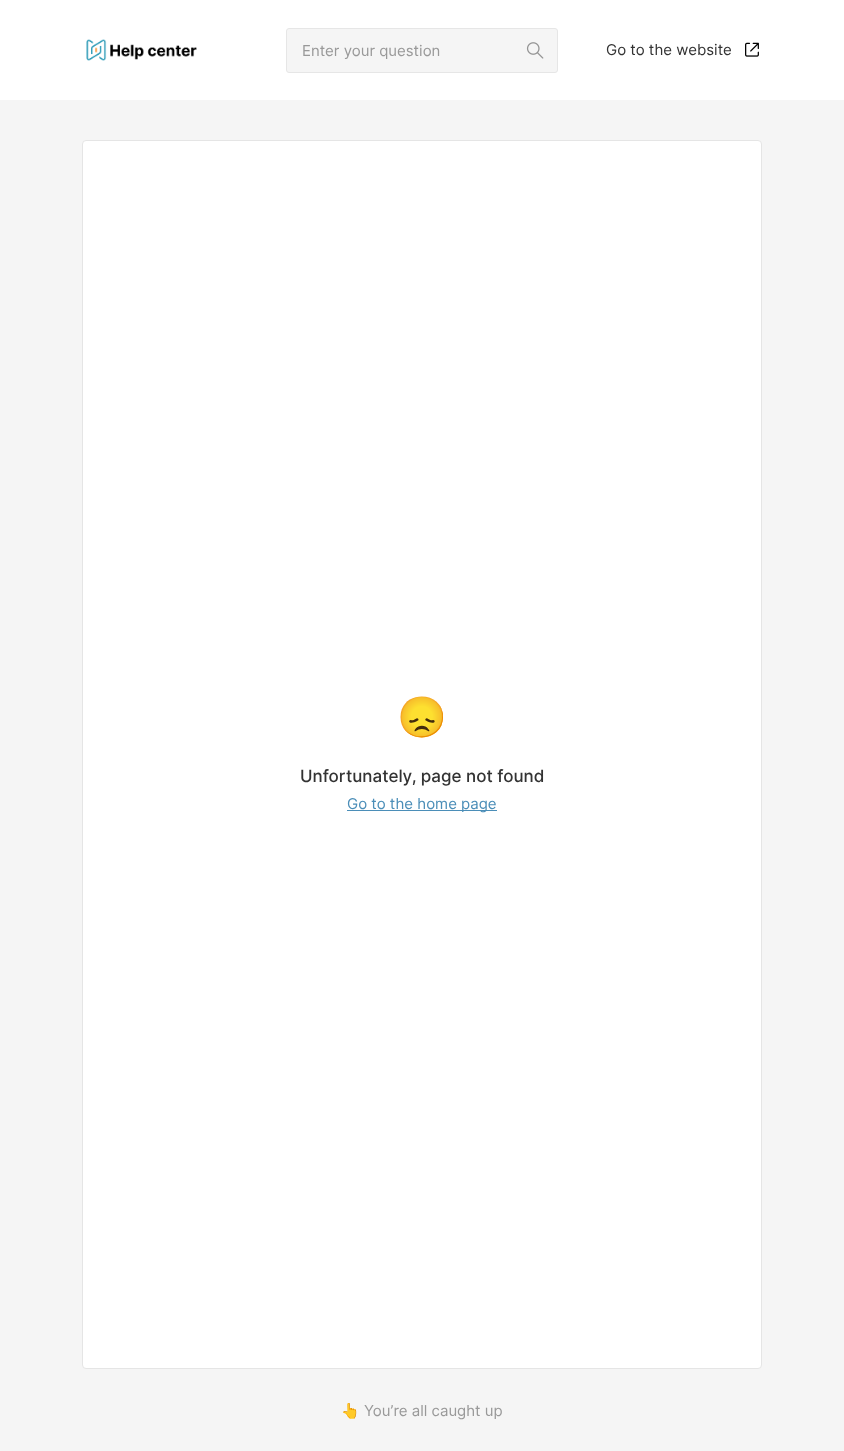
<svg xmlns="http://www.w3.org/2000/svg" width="844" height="1451">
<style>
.a{font:15px Inter;fill:#999}
.b{font:15px Inter;fill:#333}
.c{font:40px Noto Color Emoji;fill:#333}
.d{font:500 17px Inter;fill:#333}
.e{font:15px Inter;fill:#4b8eb8}
.f{font:15px Noto Color Emoji;fill:#999}
</style>
<rect width="100%" height="100%" fill="#f5f5f5"/>
<path fill="#fff" d="M0 0h844v100H0z"/>
<image href="1.png" x="86" y="39" width="111" height="22"/>
<rect fill="#f5f5f5" stroke="#e6e6e6" x="286.5" y="28.5" width="271" height="44" rx="2.5"/>
<image href="2.png" x="526" y="42" width="18" height="17"/>
<image href="3.png" x="745" y="42" width="14" height="15"/>
<rect fill="#fff" stroke="#e5e5e5" x="82.5" y="140.5" width="679" height="1228" rx="3.5"/>
<path fill="#4b8eb8" d="M347 810h150v1H347z"/>
<text class="a" x="302" y="56">Enter your question</text>
<text class="b" x="606" y="55">Go to the website</text>
<text class="c" x="397" y="731">😞</text>
<text class="d" x="300" y="782">Unfortunately, page not found</text>
<text class="e" x="347" y="809">Go to the home page</text>
<text class="f" x="341" y="1416">👆</text>
<text class="a" x="364" y="1416">You’re all caught up</text>
</svg>
